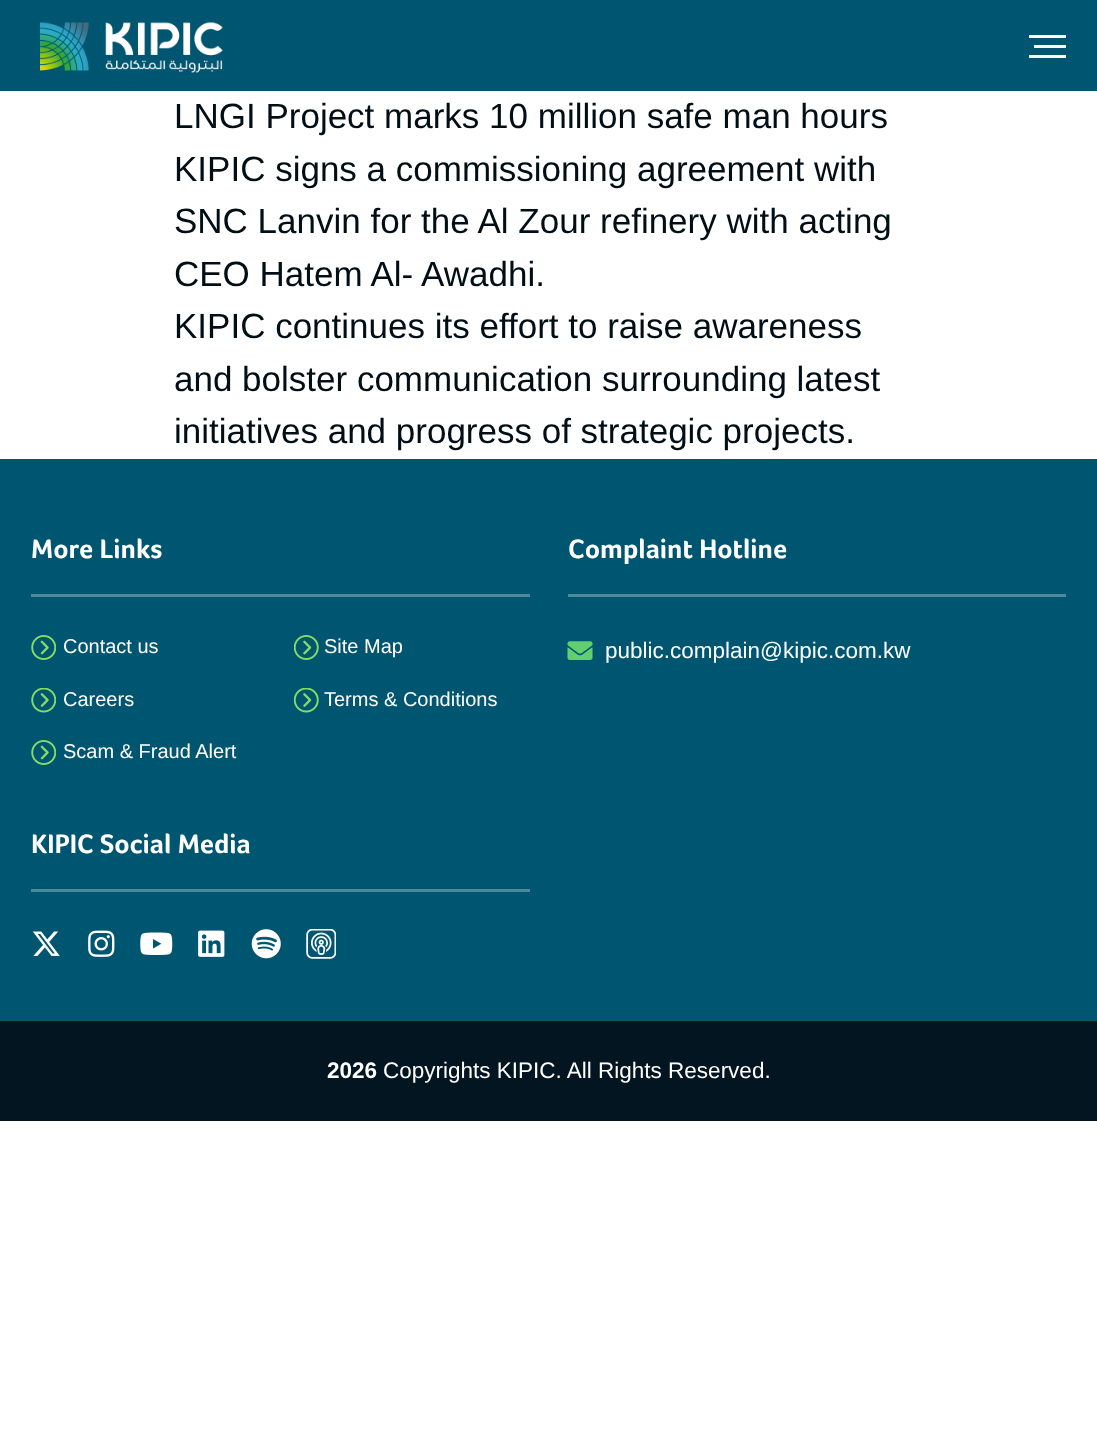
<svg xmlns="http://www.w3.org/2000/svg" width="1097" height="1440">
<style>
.a{font:35px Liberation Sans;fill:#010e15}
.b{font:bold 27.5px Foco;fill:#fff}
.c{font:20px Liberation Sans;fill:#fff}
.d{font:22.5px Liberation Sans;fill:#fff}
.e{font:bold 22.5px Liberation Sans;fill:#fff}
</style>
<rect width="100%" height="100%" fill="#fff"/>
<path fill="#005670" d="M0 0h1097v91H0z"/>
<image href="1.png" x="40" y="22" width="183" height="51"/>
<path fill="#fff" d="M1029 35h37v3H1029z"/>
<path fill="#fff" d="M1034 45h32v3H1034z"/>
<path fill="#fff" d="M1029 55h37v3H1029z"/>
<path fill="#005670" d="M0 459h1097v562H0z"/>
<path fill="#4d899b" d="M31 594h499v3H31z"/>
<image href="2.png" x="31" y="635" width="25" height="25"/>
<image href="3.png" x="294" y="635" width="25" height="25"/>
<image href="4.png" x="31" y="688" width="25" height="25"/>
<image href="5.png" x="294" y="688" width="25" height="25"/>
<image href="2.png" x="31" y="740" width="25" height="25"/>
<path fill="#4d899b" d="M568 594h498v3H568z"/>
<image href="6.png" x="567" y="641" width="26" height="19"/>
<path fill="#4d899b" d="M31 889h499v3H31z"/>
<image href="7.png" x="32" y="931" width="28" height="25"/>
<image href="8.png" x="88" y="930" width="27" height="27"/>
<image href="9.png" x="140" y="932" width="33" height="23"/>
<image href="10.png" x="198" y="930" width="27" height="27"/>
<image href="11.png" x="251" y="929" width="30" height="30"/>
<image href="12.png" x="306" y="929" width="30" height="30"/>
<path fill="#031520" d="M0 1021h1097v100H0z"/>
<text class="a" x="174" y="128">LNGI Project marks 10 million safe man hours</text>
<text class="a" x="174" y="181">KIPIC signs a commissioning agreement with</text>
<text class="a" x="174" y="233">SNC Lanvin for the Al Zour refinery with acting</text>
<text class="a" x="174" y="286">CEO Hatem Al- Awadhi.</text>
<text class="a" x="174" y="338">KIPIC continues its effort to raise awareness</text>
<text class="a" x="174" y="391">and bolster communication surrounding latest</text>
<text class="a" x="174" y="443">initiatives and progress of strategic projects.</text>
<text class="b" x="31" y="558">More Links</text>
<text class="c" x="63" y="653">Contact us</text>
<text class="c" x="324" y="653">Site Map</text>
<text class="c" x="63" y="706">Careers</text>
<text class="c" x="324" y="706">Terms &amp; Conditions</text>
<text class="c" x="63" y="758">Scam &amp; Fraud Alert</text>
<text class="b" x="568" y="558">Complaint Hotline</text>
<text class="d" x="605" y="658">public.complain@kipic.com.kw</text>
<text class="b" x="31" y="853">KIPIC Social Media</text>
<text class="e" x="327" y="1078">2026</text>
<text class="d" x="383" y="1078">Copyrights KIPIC. All Rights Reserved.</text>
</svg>
